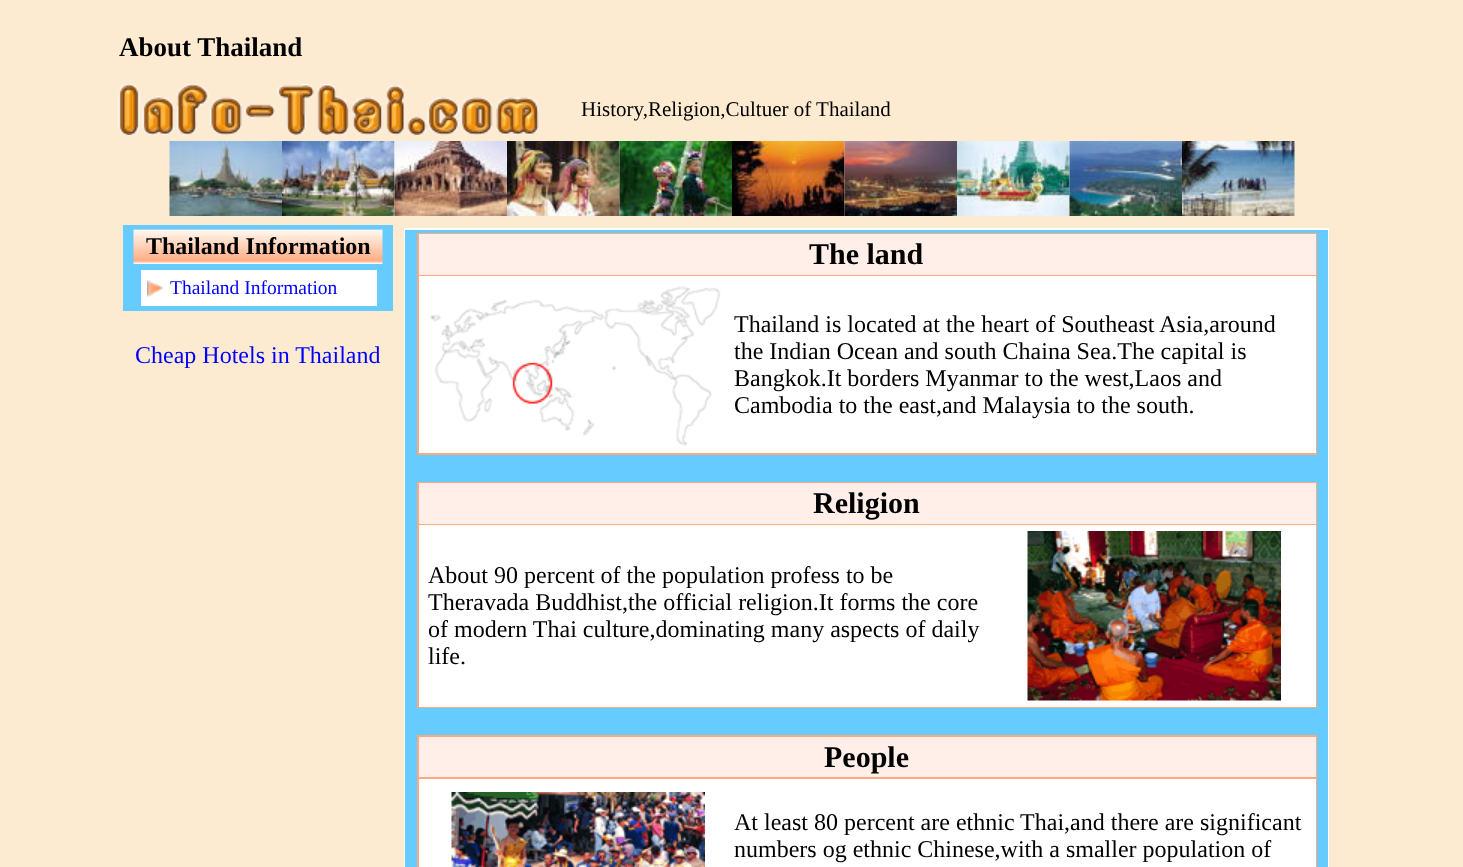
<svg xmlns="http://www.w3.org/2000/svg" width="1463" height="867">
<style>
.a{font:bold 27px Liberation Serif;fill:#000}
.b{font:21px Liberation Serif;fill:#000}
.c{font:bold 24px Liberation Serif;fill:#000}
.d{font:19.5px Liberation Serif;fill:#00f}
.e{font:24px Liberation Serif;fill:#00f}
.f{font:bold 30px Liberation Serif;fill:#000}
.g{font:24px Liberation Serif;fill:#000}
</style>
<rect width="100%" height="100%" fill="#fcebd1"/>
<image href="1.png" x="118" y="84" width="421" height="51"/>
<image href="2.png" x="169" y="141" width="113" height="75"/>
<image href="3.png" x="282" y="141" width="113" height="75"/>
<image href="4.png" x="394" y="141" width="113" height="75"/>
<image href="5.png" x="507" y="141" width="113" height="75"/>
<image href="6.png" x="619" y="141" width="113" height="75"/>
<image href="7.png" x="732" y="141" width="113" height="75"/>
<image href="8.png" x="844" y="141" width="113" height="75"/>
<image href="9.png" x="957" y="141" width="113" height="75"/>
<image href="10.png" x="1069" y="141" width="113" height="75"/>
<image href="11.png" x="1182" y="141" width="113" height="75"/>
<path fill="#6cf" d="M123 225h270v86H123z"/>
<image href="12.png" x="133" y="229" width="250" height="35"/>
<path fill="#fff" d="M141 270h236v36H141z"/>
<image href="13.png" x="147" y="280" width="17" height="17"/>
<path fill="#fff" d="M404 228h925v639H404z"/>
<path fill="#6cf" d="M405 230h923v637H405z"/>
<path fill="#ffa87d" d="M417 233h900v222H417z"/>
<path fill="#ffefe8" d="M419 234h897v41H419z"/>
<path fill="#fff" d="M419 276h897v177H419z"/>
<image href="14.png" x="430" y="286" width="291" height="160"/>
<path fill="#ffa87d" d="M417 482h900v226H417z"/>
<path fill="#ffefe8" d="M419 483h897v41H419z"/>
<path fill="#fff" d="M419 525h897v182H419z"/>
<image href="15.png" x="1027" y="531" width="254" height="170"/>
<path fill="#ffa87d" d="M417 735h900v132H417z"/>
<path fill="#ffefe8" d="M419 737h897v40H419z"/>
<path fill="#fff" d="M419 779h897v88H419z"/>
<image href="16.png" x="451" y="792" width="254" height="75"/>
<text class="a" x="119" y="56">About Thailand</text>
<text class="b" x="581" y="116">History,Religion,Cultuer of Thailand</text>
<text class="c" x="146" y="254">Thailand Information</text>
<text class="d" x="170" y="294">Thailand Information</text>
<text class="e" x="135" y="363">Cheap Hotels in Thailand</text>
<text class="f" x="809" y="264">The land</text>
<text class="g" x="734" y="332">Thailand is located at the heart of Southeast Asia,around</text>
<text class="g" x="734" y="359">the Indian Ocean and south Chaina Sea.The capital is</text>
<text class="g" x="734" y="386">Bangkok.It borders Myanmar to the west,Laos and</text>
<text class="g" x="734" y="413">Cambodia to the east,and Malaysia to the south.</text>
<text class="f" x="813" y="513">Religion</text>
<text class="g" x="428" y="583">About 90 percent of the population profess to be</text>
<text class="g" x="428" y="610">Theravada Buddhist,the official religion.It forms the core</text>
<text class="g" x="428" y="637">of modern Thai culture,dominating many aspects of daily</text>
<text class="g" x="428" y="664">life.</text>
<text class="f" x="824" y="767">People</text>
<text class="g" x="734" y="830">At least 80 percent are ethnic Thai,and there are significant</text>
<text class="g" x="734" y="857">numbers og ethnic Chinese,with a smaller population of</text>
</svg>
